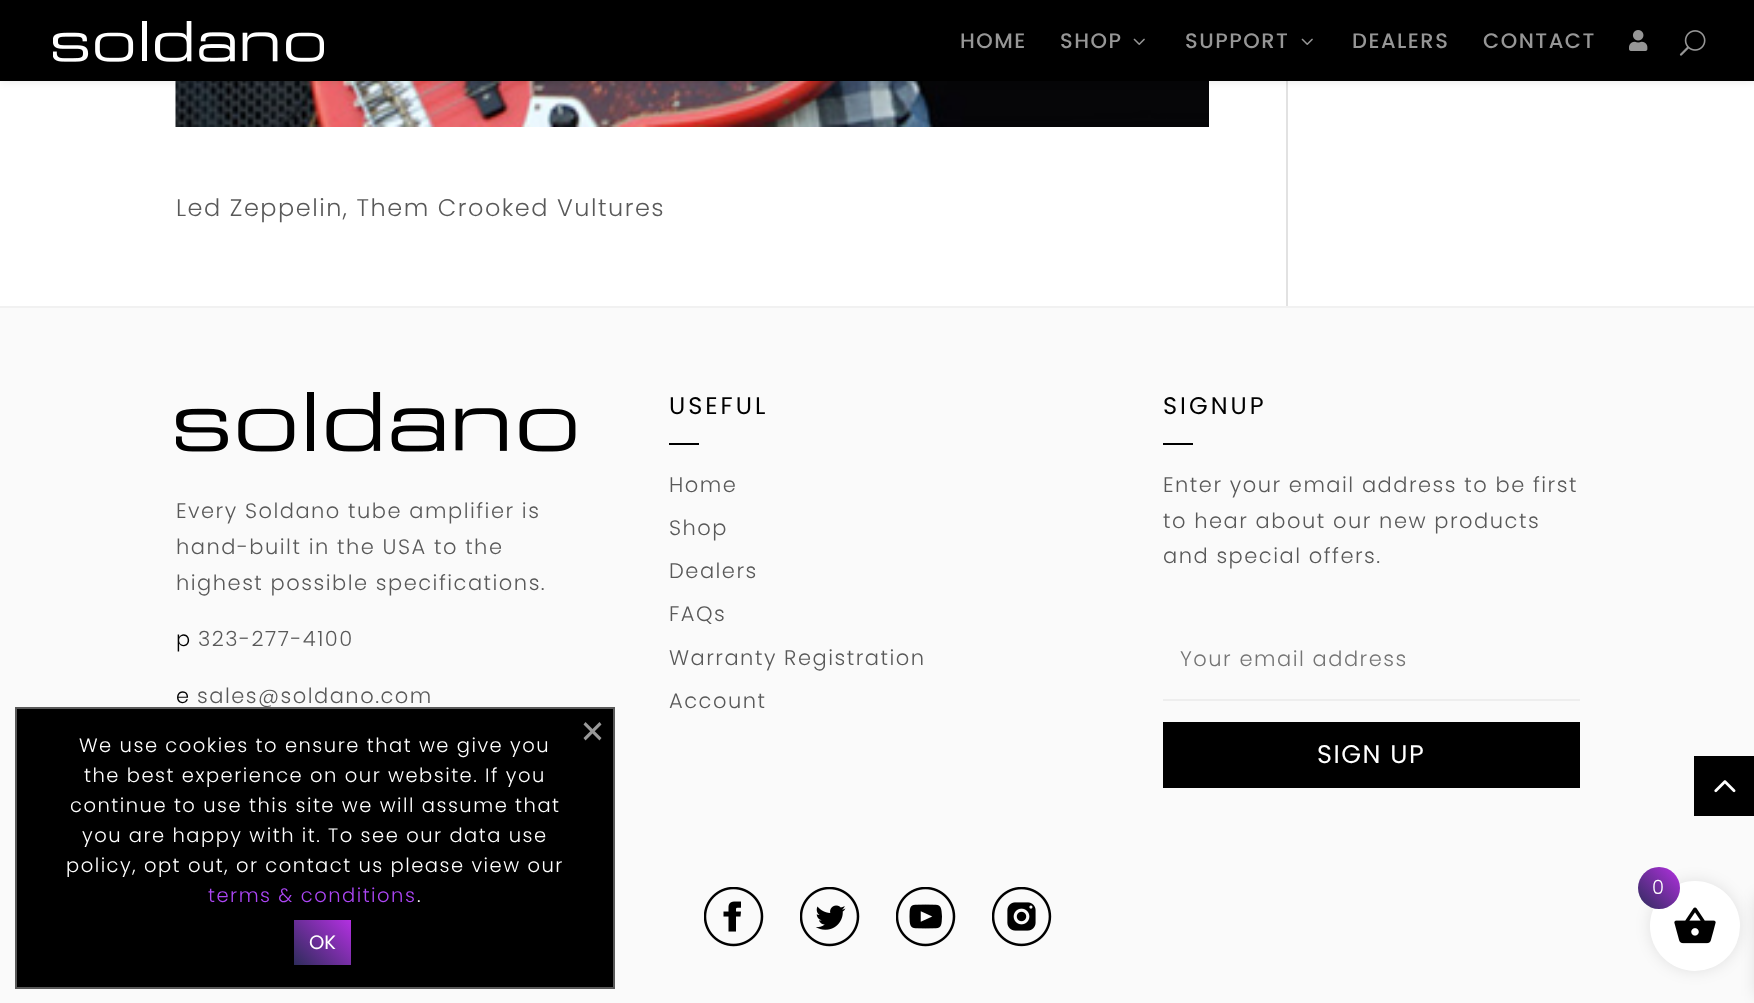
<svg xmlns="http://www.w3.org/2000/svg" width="1754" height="1003">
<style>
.a{font:500 21px Poppins;letter-spacing:1.5px;fill:#969696}
.b{font:300 24px Poppins;letter-spacing:1.5px;fill:#595959}
.c{font:300 21px Poppins;letter-spacing:1.5px;fill:#595959}
.d{font:300 21px Poppins;letter-spacing:1.5px;fill:#000}
.e{font:24px Poppins;letter-spacing:3px;fill:#000}
.f{font:300 21px Poppins;letter-spacing:1.5px;fill:#757575}
.g{font:25.5px Poppins;letter-spacing:1.5px;fill:#fff}
.h{font:300 19.5px Poppins;letter-spacing:1.5px;fill:#fff}
.i{font:300 19.5px Poppins;letter-spacing:1.5px;fill:#ac46f5}
.j{font:19.5px Poppins;fill:#fff}
</style>
<defs>
<linearGradient id="g1" gradientUnits="userSpaceOnUse" x1="1638" y1="909" x2="1680" y2="867"><stop offset="0" stop-color="#2e2c5b"/><stop offset="1" stop-color="#b330e1"/></linearGradient>
<linearGradient id="g2" gradientUnits="userSpaceOnUse" x1="297" y1="968" x2="348" y2="917"><stop offset="0" stop-color="#2e2c5b"/><stop offset="1" stop-color="#b330e1"/></linearGradient>
</defs>
<rect width="100%" height="100%" fill="#fff"/>
<image href="5.png" x="175" y="81" width="1034" height="46"/>
<path fill="#e2e2e2" d="M1286 81h2v225H1286z"/>
<path fill="#0000001a" filter="blur(5px)" d="M0 0h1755v81H0z"/>
<path fill="#000" d="M0 0h1754v81H0z"/>
<image href="1.png" x="53" y="21" width="271" height="41"/>
<image href="2.png" x="1133" y="38" width="12" height="7"/>
<image href="2.png" x="1301" y="38" width="12" height="7"/>
<image href="3.png" x="1629" y="30" width="19" height="21"/>
<image href="4.png" x="1679" y="30" width="27" height="26"/>
<path fill="#fafafa" d="M0 308h1754v695H0z"/>
<path fill="#f1f1f1" d="M0 306h1754v2H0z"/>
<image href="6.png" x="176" y="392" width="400" height="60"/>
<path fill="#000" d="M669 443h30v2H669z"/>
<path fill="#000" d="M1163 443h30v2H1163z"/>
<path fill="#eee" d="M1163 699h417v2H1163z"/>
<path fill="#000" d="M1163 722h417v66H1163z"/>
<image href="7.png" x="704" y="887" width="60" height="60"/>
<image href="8.png" x="800" y="887" width="60" height="60"/>
<image href="9.png" x="896" y="887" width="60" height="60"/>
<image href="10.png" x="992" y="887" width="60" height="60"/>
<path fill="#000" d="M1694 756h60v60H1694z"/>
<image href="11.png" x="1714" y="780" width="22" height="13"/>
<rect fill="#0000001a" filter="blur(7.5px)" x="1650" y="881" width="90" height="90" rx="45"/>
<path fill="#0000001a" filter="blur(7.5px)" d="M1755 896h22v100H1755z"/>
<circle fill="#fff" cx="1695" cy="926" r="45"/>
<image href="12.png" x="1674" y="907" width="42" height="37"/>
<circle fill="url(#g1)" cx="1659" cy="888" r="21"/>
<text class="a" x="960" y="48">HOME</text>
<text class="a" x="1060" y="48">SHOP</text>
<text class="a" x="1185" y="48">SUPPORT</text>
<text class="a" x="1352" y="48">DEALERS</text>
<text class="a" x="1483" y="48">CONTACT</text>
<text class="b" x="176" y="216">Led Zeppelin, Them Crooked Vultures</text>
<text class="c" x="176" y="518">Every Soldano tube amplifier is</text>
<text class="c" x="176" y="554">hand-built in the USA to the</text>
<text class="c" x="176" y="590">highest possible specifications.</text>
<text class="d" x="176" y="646">p</text>
<text class="c" x="198" y="646">323-277-4100</text>
<text class="d" x="176" y="703">e</text>
<text class="c" x="197" y="703">sales@soldano.com</text>
<text class="e" x="669" y="414">USEFUL</text>
<text class="c" x="669" y="492">Home</text>
<text class="c" x="669" y="535">Shop</text>
<text class="c" x="669" y="578">Dealers</text>
<text class="c" x="669" y="621">FAQs</text>
<text class="c" x="669" y="665">Warranty Registration</text>
<text class="c" x="669" y="708">Account</text>
<text class="e" x="1163" y="414">SIGNUP</text>
<text class="c" x="1163" y="492">Enter your email address to be first</text>
<text class="c" x="1163" y="528">to hear about our new products</text>
<text class="c" x="1163" y="563">and special offers.</text>
<text class="f" x="1180" y="666">Your email address</text>
<text class="g" x="1317" y="763">SIGN UP</text>
<path fill="#000" stroke="#595959" stroke-width="2" d="M16 708h598v280H16z"/>
<path fill="#999" d="M599.5 722l2 2.5l-16 16l-2-2.5z"/>
<path fill="#999" d="M583.5 724.5l2-2.5l16 16l-2 2.5z"/>
<text class="h" x="79" y="752">We use cookies to ensure that we give you</text>
<text class="h" x="84" y="782">the best experience on our website. If you</text>
<text class="h" x="70" y="812">continue to use this site we will assume that</text>
<text class="h" x="82" y="842">you are happy with it. To see our data use</text>
<text class="h" x="66" y="872">policy, opt out, or contact us please view our</text>
<text class="i" x="208" y="902">terms &amp; conditions</text>
<text class="h" x="417" y="902">.</text>
<path fill="url(#g2)" d="M294 920h57v45H294z"/>
<text class="j" x="309" y="949">OK</text>
<text class="h" x="1652" y="894">0</text>
</svg>
